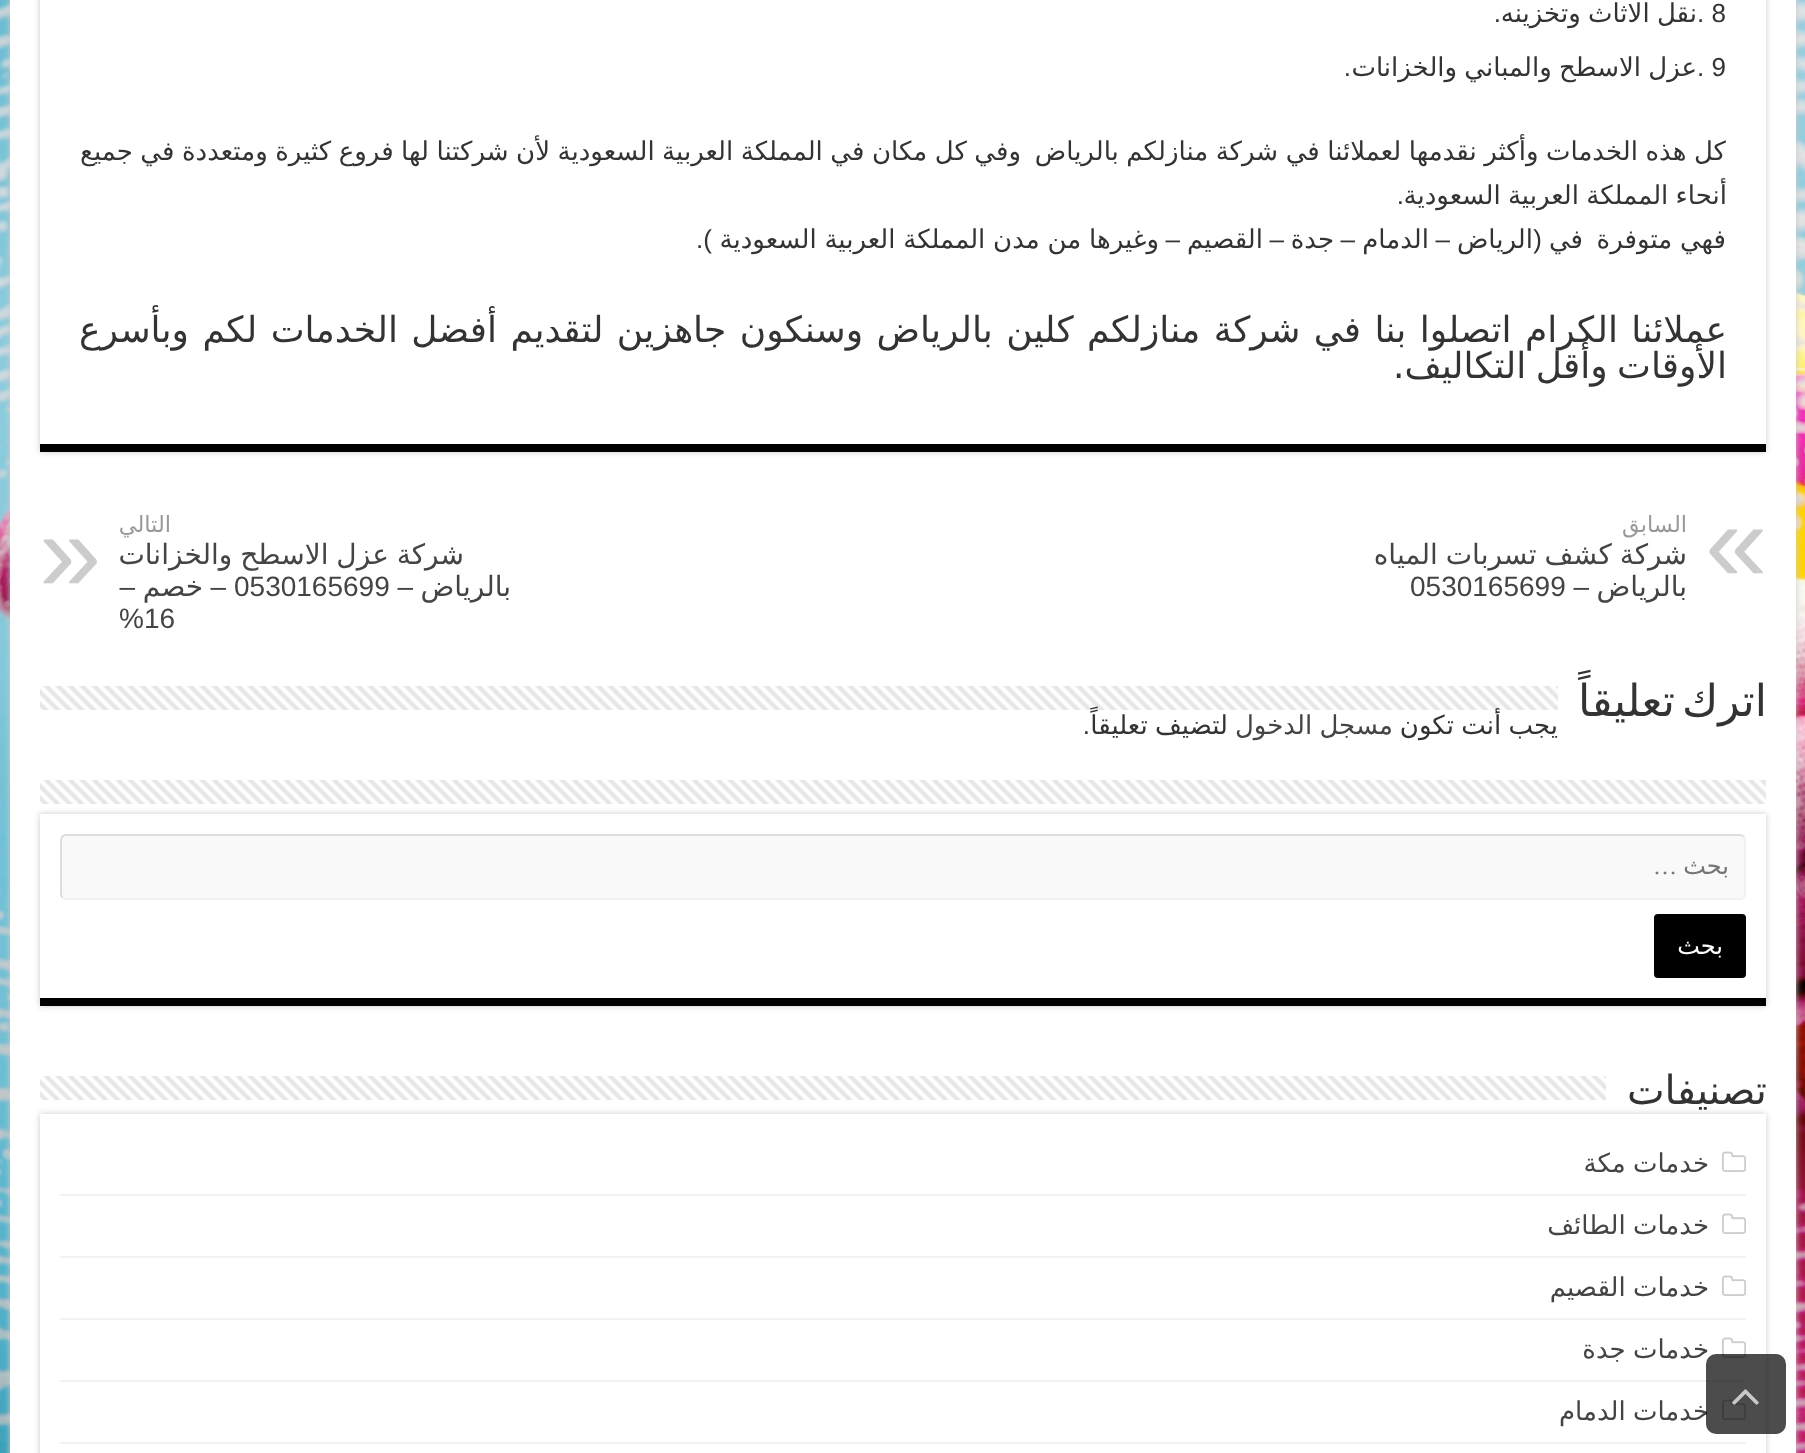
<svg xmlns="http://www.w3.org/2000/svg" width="1805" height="1453">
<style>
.a{font:26px Liberation Sans;fill:#333}
.b{font:26px DejaVu Sans;direction:rtl;fill:#333}
.c{font:26px Liberation Sans;direction:rtl;fill:#333}
.d{font:36px DejaVu Sans;direction:rtl;fill:#333}
.e{font:22.5px DejaVu Sans;direction:rtl;fill:#999}
.f{font:112px Liberation Sans;fill:#ccc}
.g{font:28px DejaVu Sans;direction:rtl;fill:#444}
.h{font:28px Liberation Sans;direction:rtl;fill:#444}
.i{font:28px Liberation Sans;fill:#444}
.j{font:44px DejaVu Sans;direction:rtl;fill:#333}
.k{font:26px DejaVu Sans;direction:rtl;fill:#444}
.l{font:24px DejaVu Sans;direction:rtl;fill:#757575}
.m{font:24px Liberation Serif;direction:rtl;fill:#757575}
.n{font:24px DejaVu Sans;direction:rtl;fill:#fff}
.o{font:40px DejaVu Sans;direction:rtl;fill:#333}
</style>
<defs>
<clipPath id="clip1"><path d="M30 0h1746v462h-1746zm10-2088h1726v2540h-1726z" clip-rule="evenodd"/></clipPath>
<clipPath id="clip2"><path d="M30 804h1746v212h-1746zm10 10h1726v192h-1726z" clip-rule="evenodd"/></clipPath>
<clipPath id="clip3"><path d="M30 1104h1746v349h-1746zm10 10h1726v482h-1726z" clip-rule="evenodd"/></clipPath>
</defs>
<rect width="100%" height="100%" fill="#fff"/>
<image href="1.png" x="0" y="0" width="1805" height="1453"/>
<path fill="#cacaca" filter="blur(3px)" d="M10 -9h1786v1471H10z"/>
<path fill="#fff" d="M10 0h1786v1453H10z"/>
<g clip-path="url(#clip1)">
<path fill="#cacaca" filter="blur(3px)" d="M40 -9h1726v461H40z"/>
</g>
<path fill="#000" d="M40 444h1726v8H40z"/>
<image href="3.png" x="40" y="780" width="1726" height="24"/>
<g clip-path="url(#clip2)">
<path fill="#cacaca" filter="blur(3px)" d="M40 814h1726v192H40z"/>
</g>
<path fill="#000" d="M40 998h1726v8H40z"/>
<rect fill="#f9f9f9" x="60" y="834" width="1686" height="66" rx="6"/>
<path fill="none" stroke="#f1f1f1" stroke-width="2" d="M1743.5 836.5c1 1 1.5 2 1.5 3.5v54c0 1.5-.5 2.5-1.5 3.5c-1 1-2 1.5-3.5 1.5h-1674c-1.5 0-2.5-.5-3.5-1.5"/>
<path fill="none" stroke="#ddd" stroke-width="2" d="M62.5 897.5c-1-1-1.5-2-1.5-3.5v-54c0-1.5 .5-2.5 1.5-3.5c1-1 2-1.5 3.5-1.5h1674c1.5 0 2.5 .5 3.5 1.5"/>
<rect fill="#000" x="1654" y="914" width="92" height="64" rx="4"/>
<image href="4.png" x="40" y="1076" width="1566" height="24"/>
<g clip-path="url(#clip3)">
<path fill="#cacaca" filter="blur(3px)" d="M40 1114h1726v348H40z"/>
</g>
<path fill="#f2f2f2" d="M60 1194h1686v2H60z"/>
<image href="5.png" x="1722" y="1151" width="24" height="21"/>
<path fill="#f2f2f2" d="M60 1256h1686v2H60z"/>
<image href="5.png" x="1722" y="1213" width="24" height="21"/>
<path fill="#f2f2f2" d="M60 1318h1686v2H60z"/>
<image href="5.png" x="1722" y="1275" width="24" height="21"/>
<path fill="#f2f2f2" d="M60 1380h1686v2H60z"/>
<image href="5.png" x="1722" y="1337" width="24" height="21"/>
<path fill="#f2f2f2" d="M60 1442h1686v2H60z"/>
<image href="5.png" x="1722" y="1399" width="24" height="21"/>
<text class="a" x="1697" y="22">. 8</text>
<text class="b" x="1697" y="22" word-spacing="-1">نقل الاثاث وتخزينه</text>
<text class="c" x="1501" y="22">.</text>
<text class="a" x="1697" y="76">. 9</text>
<text class="b" x="1697" y="76" word-spacing="-1">عزل الاسطح والمباني والخزانات</text>
<text class="c" x="1351" y="76">.</text>
<text class="b" x="1726" y="160" word-spacing="-0.75">كل هذه الخدمات وأكثر نقدمها لعملائنا في شركة منازلكم بالرياض</text>
<text class="b" x="1021" y="160" word-spacing="-0.75">وفي كل مكان في المملكة العربية السعودية لأن شركتنا لها فروع كثيرة ومتعددة في جميع</text>
<text class="b" x="1727" y="204" word-spacing="-1">أنحاء المملكة العربية السعودية</text>
<text class="c" x="1404" y="204">.</text>
<text class="b" x="1726" y="248" word-spacing="-0.5">فهي متوفرة</text>
<text class="b" x="1583" y="248">في</text>
<text class="c" x="1542" y="248">(</text>
<text class="b" x="1533" y="248">الرياض</text>
<text class="c" x="1450" y="248">–</text>
<text class="b" x="1429" y="248">الدمام</text>
<text class="c" x="1355" y="248">–</text>
<text class="b" x="1334" y="248">جدة</text>
<text class="c" x="1284" y="248">–</text>
<text class="b" x="1263" y="248">القصيم</text>
<text class="c" x="1180" y="248">–</text>
<text class="b" x="1159" y="248" word-spacing="-0.5">وغيرها من مدن المملكة العربية السعودية</text>
<text class="c" x="712" y="248">).</text>
<text class="d" x="1727" y="342" word-spacing="2">عملائنا الكرام اتصلوا بنا في شركة منازلكم كلين بالرياض وسنكون جاهزين لتقديم أفضل الخدمات لكم وبأسرع</text>
<text class="d" x="1727" y="378" word-spacing="-2">الأوقات وأقل التكاليف.</text>
<text class="e" x="1687" y="532">السابق</text>
<text class="f" x="1705" y="581">«</text>
<text class="g" x="1687" y="564" word-spacing="-1">شركة كشف تسربات المياه</text>
<text class="g" x="1687" y="596">بالرياض</text>
<text class="h" x="1589" y="596">–</text>
<text class="i" x="1410" y="596">0530165699</text>
<text class="e" x="171" y="532">التالي</text>
<text class="g" x="464" y="564" word-spacing="-1">شركة عزل الاسطح والخزانات</text>
<text class="f" x="39" y="591">»</text>
<text class="g" x="511" y="596">بالرياض</text>
<text class="h" x="413" y="596">–</text>
<text class="i" x="234" y="596">0530165699</text>
<text class="h" x="226" y="596">–</text>
<text class="g" x="203" y="596">خصم</text>
<text class="h" x="135" y="596">–</text>
<text class="i" x="119" y="628">%16</text>
<text class="j" x="1767" y="716" word-spacing="-7">اترك تعليقاً</text>
<text class="b" x="1558" y="734" word-spacing="-1">يجب أنت تكون</text>
<text class="k" x="1393" y="734" word-spacing="-1">مسجل الدخول</text>
<text class="b" x="1228" y="734" word-spacing="-1">لتضيف تعليقاً</text>
<image href="2.png" x="40" y="686" width="1518" height="24"/>
<text class="c" x="1090" y="734">.</text>
<text class="l" x="1729" y="874">بحث</text>
<text class="m" x="1677" y="874">…</text>
<text class="n" x="1723" y="954">بحث</text>
<text class="o" x="1767" y="1104">تصنيفات</text>
<text class="k" x="1709" y="1172" word-spacing="-1">خدمات مكة</text>
<text class="k" x="1709" y="1234" word-spacing="-1">خدمات الطائف</text>
<text class="k" x="1709" y="1296" word-spacing="-1">خدمات القصيم</text>
<text class="k" x="1709" y="1358" word-spacing="-1">خدمات جدة</text>
<text class="k" x="1709" y="1420" word-spacing="-1">خدمات الدمام</text>
<rect fill="#000000b3" x="1706" y="1354" width="80" height="80" rx="10"/>
<image href="6.png" x="1732" y="1389" width="27" height="16"/>
</svg>
